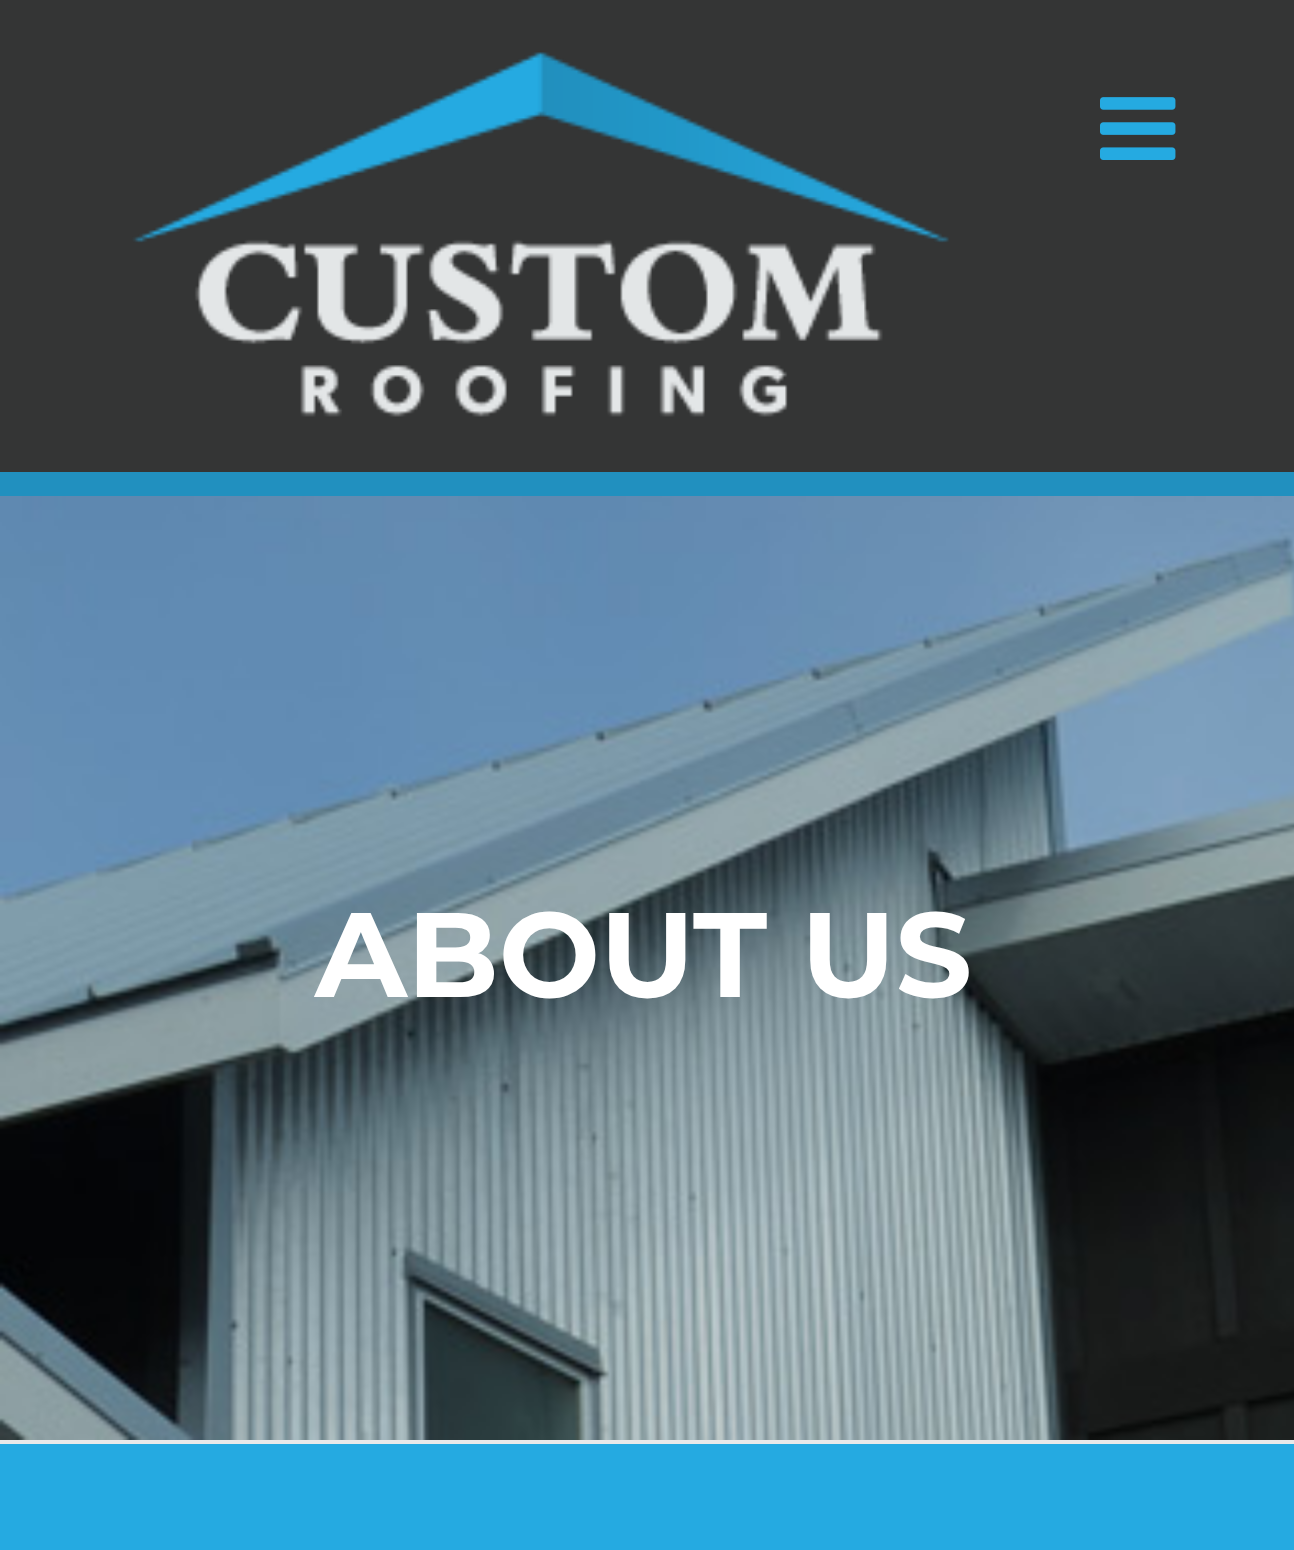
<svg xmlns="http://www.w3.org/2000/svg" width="1294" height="1550">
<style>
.a{font:bold 120px Montserrat;fill:#fff}
</style>
<rect width="100%" height="100%" fill="#e9e9e9"/>
<path fill="#343535" d="M0 0h1294v472H0z"/>
<path fill="#2190bf" d="M0 472h1294v24H0z"/>
<image href="1.png" x="132" y="52" width="817" height="365"/>
<image href="2.png" x="1100" y="97" width="76" height="63"/>
<image href="3.png" x="0" y="496" width="1294" height="944"/>
<path fill="#25aae1" d="M0 1444h1294v106H0z"/>
<text class="a" x="315" y="997">ABOUT US</text>
</svg>
